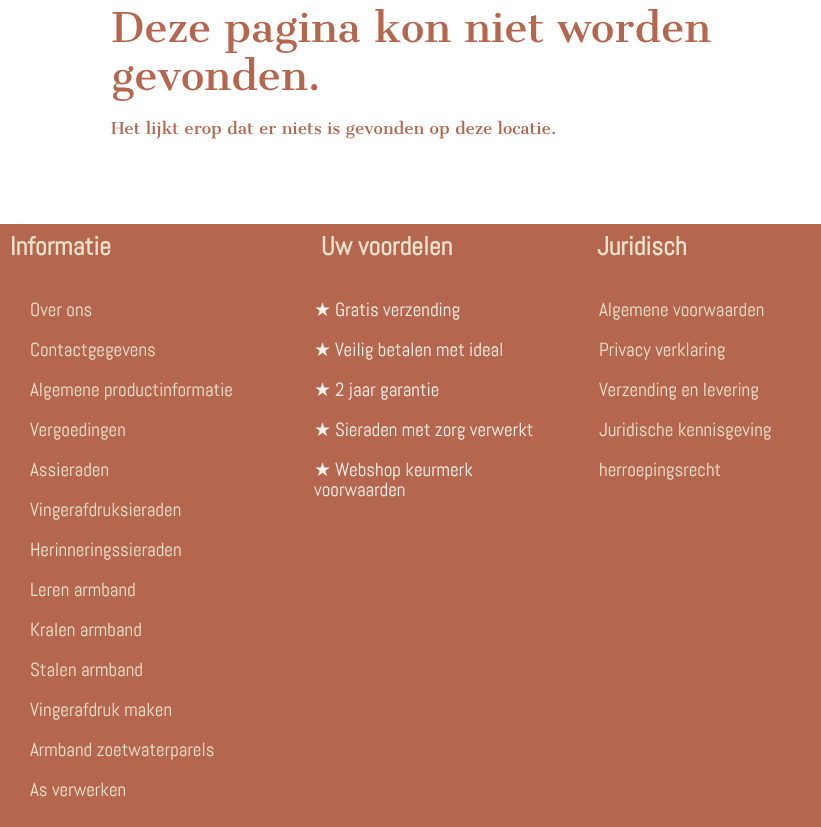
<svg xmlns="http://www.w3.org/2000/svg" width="821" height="827">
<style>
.a{font:40px Cantata One;fill:#b4674e}
.b{font:16px Cantata One;fill:#b4674e}
.c{font:bold 26px Abel;fill:#ece1cb}
.d{font:19px Abel;fill:#ece1cb}
.e{font:19px DejaVu Sans;fill:#f6f1ea}
.f{font:19px Abel;fill:#f6f1ea}
</style>
<rect width="100%" height="100%" fill="#fff"/>
<path fill="#b4674e" d="M0 224h821v603H0z"/>
<text class="a" x="111" y="42">Deze pagina kon niet worden</text>
<text class="a" x="111" y="90">gevonden.</text>
<text class="b" x="111" y="134">Het lijkt erop dat er niets is gevonden op deze locatie.</text>
<text class="c" x="10" y="255">Informatie</text>
<text class="d" x="30" y="316">Over ons</text>
<text class="d" x="30" y="356">Contactgegevens</text>
<text class="d" x="30" y="396">Algemene productinformatie</text>
<text class="d" x="30" y="436">Vergoedingen</text>
<text class="d" x="30" y="476">Assieraden</text>
<text class="d" x="30" y="516">Vingerafdruksieraden</text>
<text class="d" x="30" y="556">Herinneringssieraden</text>
<text class="d" x="30" y="596">Leren armband</text>
<text class="d" x="30" y="636">Kralen armband</text>
<text class="d" x="30" y="676">Stalen armband</text>
<text class="d" x="30" y="716">Vingerafdruk maken</text>
<text class="d" x="30" y="756">Armband zoetwaterparels</text>
<text class="d" x="30" y="796">As verwerken</text>
<text class="c" x="321" y="255">Uw voordelen</text>
<text class="e" x="314" y="316">★</text>
<text class="f" x="335" y="316">Gratis verzending</text>
<text class="e" x="314" y="356">★</text>
<text class="f" x="335" y="356">Veilig betalen met ideal</text>
<text class="e" x="314" y="396">★</text>
<text class="f" x="335" y="396">2 jaar garantie</text>
<text class="e" x="314" y="436">★</text>
<text class="f" x="335" y="436">Sieraden met zorg verwerkt</text>
<text class="e" x="314" y="476">★</text>
<text class="f" x="335" y="476">Webshop keurmerk</text>
<text class="f" x="314" y="496">voorwaarden</text>
<text class="c" x="597" y="255">Juridisch</text>
<text class="d" x="599" y="316">Algemene voorwaarden</text>
<text class="d" x="599" y="356">Privacy verklaring</text>
<text class="d" x="599" y="396">Verzending en levering</text>
<text class="d" x="599" y="436">Juridische kennisgeving</text>
<text class="d" x="599" y="476">herroepingsrecht</text>
</svg>
